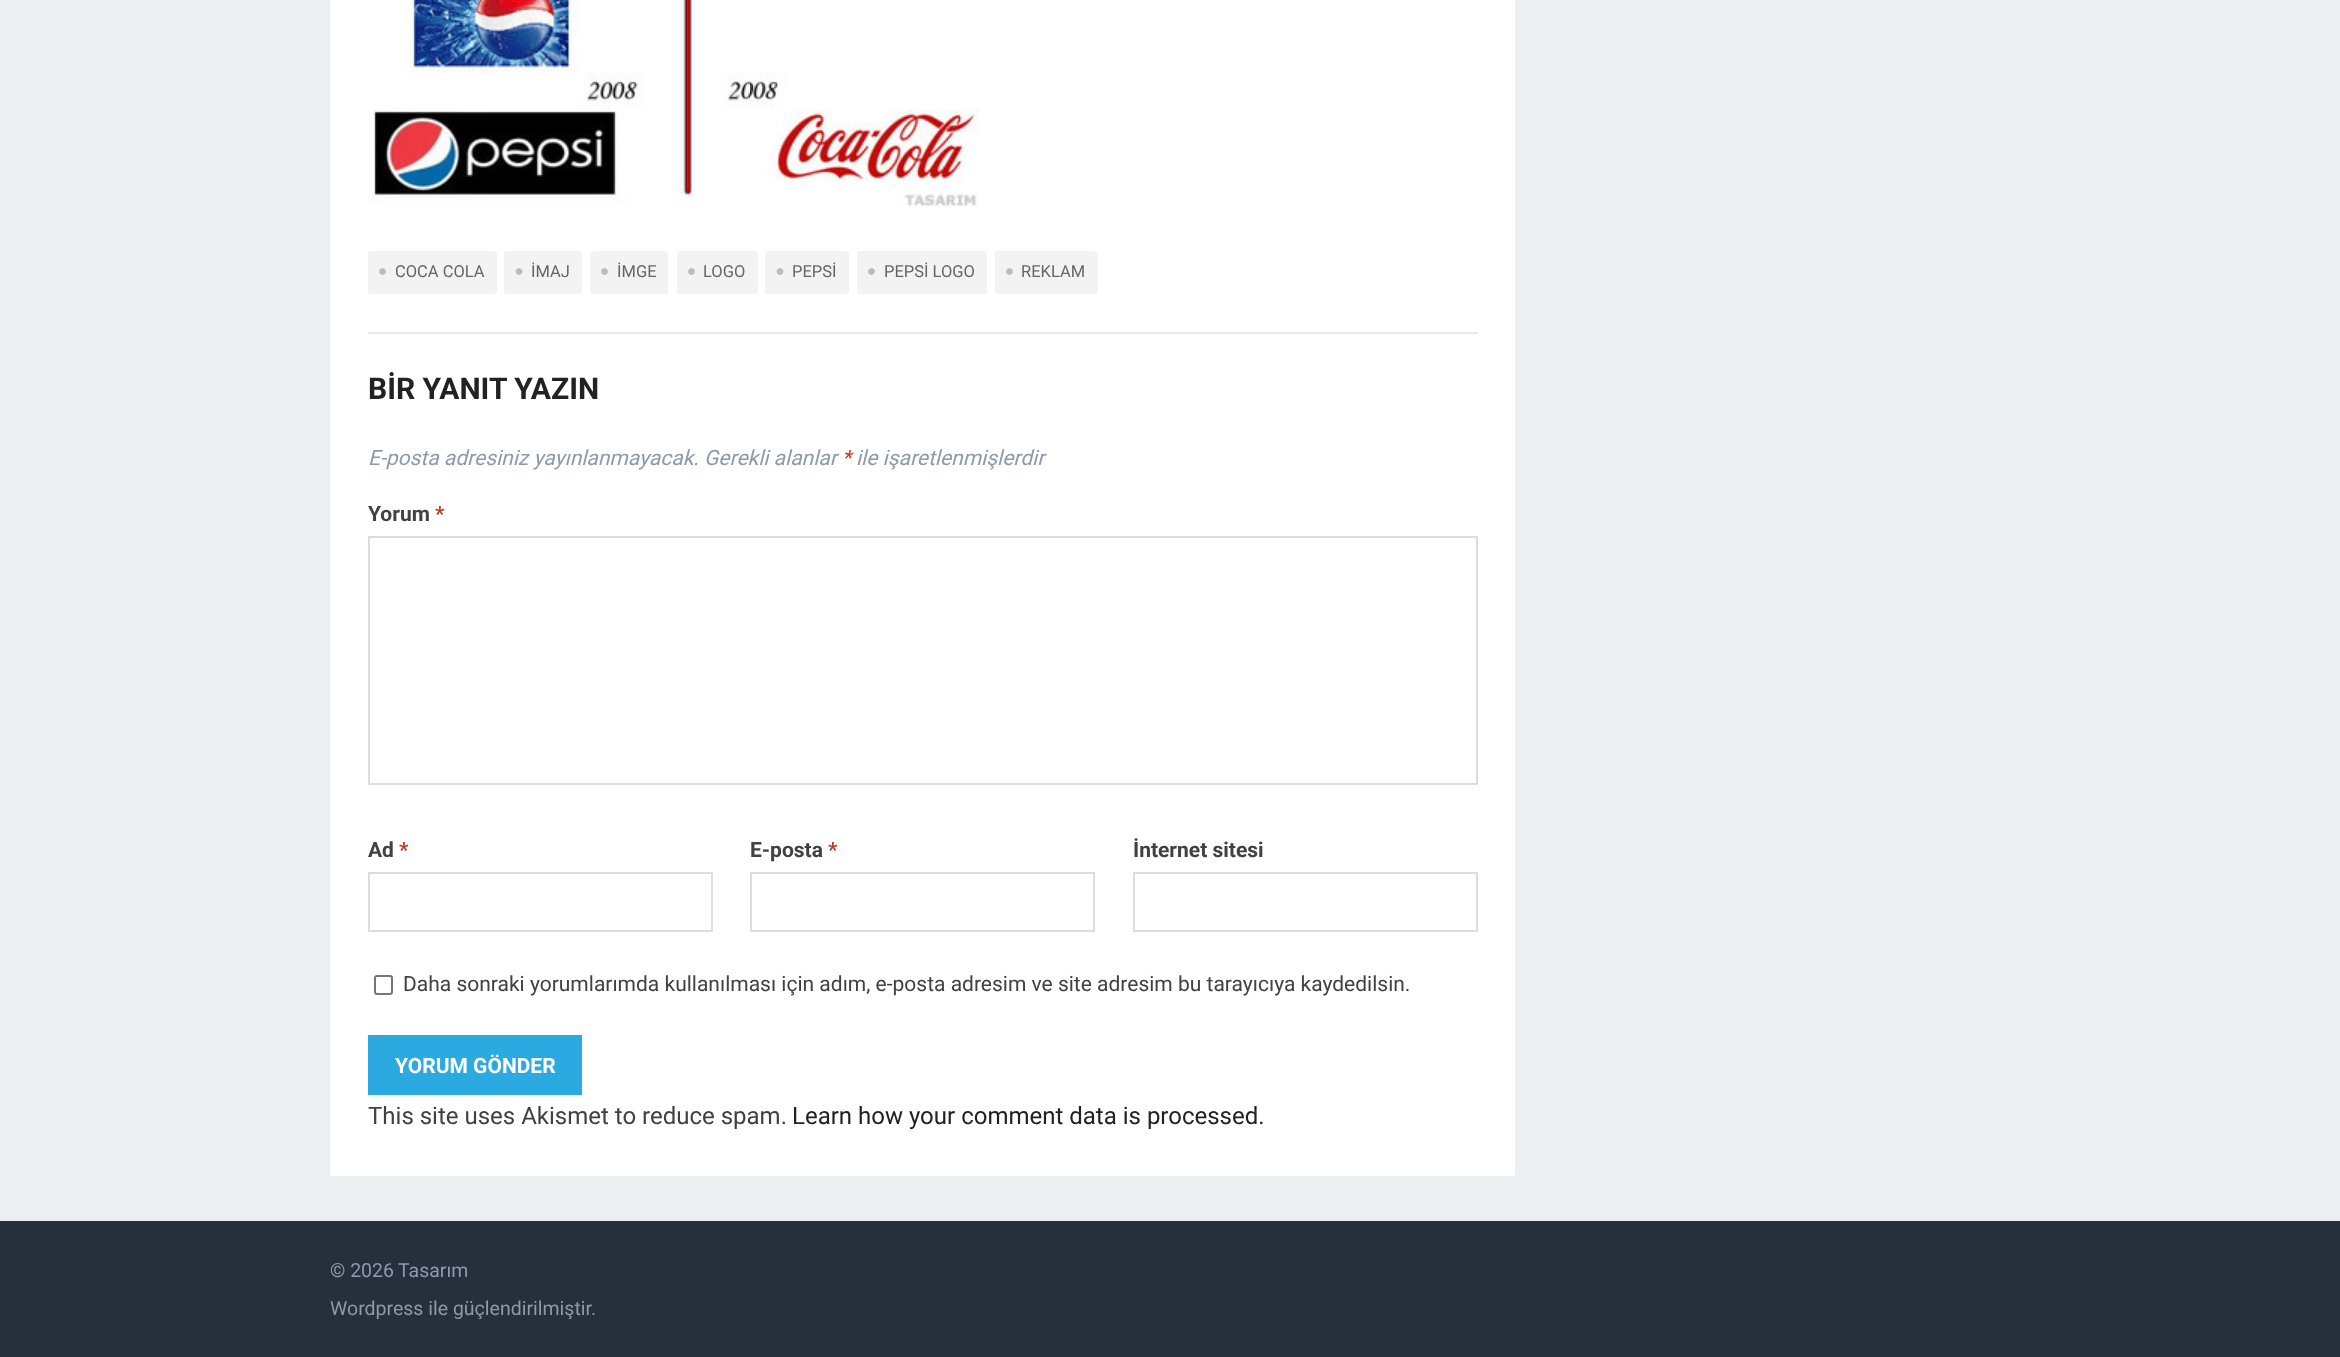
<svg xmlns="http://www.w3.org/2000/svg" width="2340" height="1357">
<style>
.a{font:16.5px Roboto;fill:#666}
.b{font:bold 30px Roboto;fill:#222}
.c{font:italic 21px Roboto;fill:#8e99a9}
.d{font:italic 21px Roboto;fill:#c0392b}
.e{font:bold 21px Roboto;fill:#414141}
.f{font:bold 21px Roboto;fill:#c0392b}
.g{font:21px Roboto;fill:#414141}
.h{font:bold 21px Roboto;fill:#fff}
.i{font:24px Roboto;fill:#414141}
.j{font:24px Roboto;fill:#222}
.k{font:19.5px Roboto;fill:#8e99a9}
</style>
<rect width="100%" height="100%" fill="#eceff1"/>
<path fill="#fff" d="M330 0h1185v1176H330z"/>
<image href="1.png" x="368" y="0" width="612" height="207"/>
<rect fill="#f3f3f3" x="368" y="251" width="129" height="43" rx="3"/>
<image href="2.png" x="379" y="268" width="7" height="7"/>
<rect fill="#f3f3f3" x="504" y="251" width="78" height="43" rx="3"/>
<image href="3.png" x="515" y="268" width="8" height="7"/>
<rect fill="#f3f3f3" x="590" y="251" width="78" height="43" rx="3"/>
<image href="2.png" x="601" y="268" width="7" height="7"/>
<rect fill="#f3f3f3" x="677" y="251" width="81" height="43" rx="3"/>
<image href="2.png" x="688" y="268" width="7" height="7"/>
<rect fill="#f3f3f3" x="765" y="251" width="84" height="43" rx="3"/>
<image href="3.png" x="776" y="268" width="8" height="7"/>
<rect fill="#f3f3f3" x="857" y="251" width="130" height="43" rx="3"/>
<image href="2.png" x="868" y="268" width="7" height="7"/>
<rect fill="#f3f3f3" x="995" y="251" width="103" height="43" rx="3"/>
<image href="2.png" x="1006" y="268" width="7" height="7"/>
<path fill="#e9e9e9" d="M368 332h1110v2H368z"/>
<path fill="none" stroke="#ddd" stroke-width="2" d="M369 537h1108v247H369z"/>
<path fill="none" stroke="#ddd" stroke-width="2" d="M369 873h343v58H369z"/>
<path fill="none" stroke="#ddd" stroke-width="2" d="M751 873h343v58H751z"/>
<path fill="none" stroke="#ddd" stroke-width="2" d="M1134 873h343v58H1134z"/>
<rect fill="none" stroke="#767676" stroke-width="2" x="375" y="976" width="17" height="18" rx="2"/>
<path fill="#2baae1" d="M368 1035h214v60H368z"/>
<path fill="#262f3c" d="M0 1221h2340v136H0z"/>
<text class="a" x="395" y="277">COCA COLA</text>
<text class="a" x="531" y="277">İMAJ</text>
<text class="a" x="617" y="277">İMGE</text>
<text class="a" x="703" y="277">LOGO</text>
<text class="a" x="792" y="277">PEPSİ</text>
<text class="a" x="884" y="277">PEPSİ LOGO</text>
<text class="a" x="1021" y="277">REKLAM</text>
<text class="b" x="368" y="399">BİR YANIT YAZIN</text>
<text class="c" x="368" y="465">E-posta adresiniz yayınlanmayacak. Gerekli alanlar</text>
<text class="d" x="842" y="465">*</text>
<text class="c" x="856" y="465">ile işaretlenmişlerdir</text>
<text class="e" x="368" y="521">Yorum</text>
<text class="f" x="435" y="521">*</text>
<text class="e" x="368" y="857">Ad</text>
<text class="f" x="399" y="857">*</text>
<text class="e" x="750" y="857">E-posta</text>
<text class="f" x="828" y="857">*</text>
<text class="e" x="1133" y="857">İnternet sitesi</text>
<text class="g" x="403" y="991">Daha sonraki yorumlarımda kullanılması için adım, e-posta adresim ve site adresim bu tarayıcıya kaydedilsin.</text>
<text class="h" x="395" y="1073">YORUM GÖNDER</text>
<text class="i" x="368" y="1124">This site uses Akismet to reduce spam.</text>
<text class="j" x="792" y="1124">Learn how your comment data is processed.</text>
<text class="k" x="330" y="1277">© 2026</text>
<text class="k" x="398" y="1277">Tasarım</text>
<text class="k" x="330" y="1315">Wordpress ile güçlendirilmiştir.</text>
</svg>
